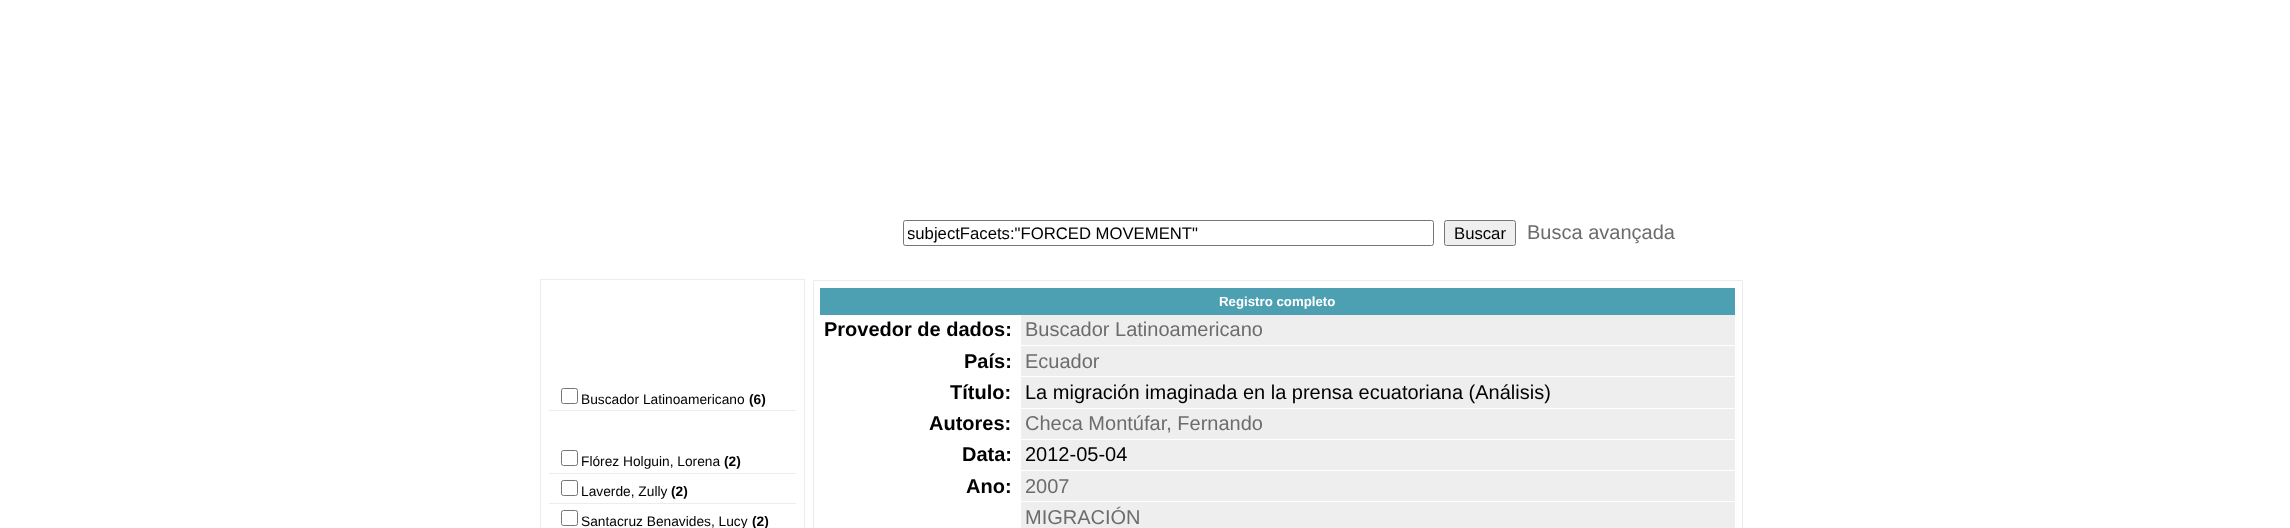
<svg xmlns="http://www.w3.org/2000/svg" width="2290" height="528">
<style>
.a{font:16.7px Liberation Sans;fill:#000}
.b{font:20px Liberation Sans;fill:#6c6c6c}
.c{font:13.75px Liberation Sans;fill:#000}
.d{font:bold 13.75px Liberation Sans;fill:#000}
.e{font:bold 13.25px Liberation Sans;fill:#fff}
.f{font:bold 20px Liberation Sans;fill:#000}
.g{font:20px Liberation Sans;fill:#000}
</style>
<defs>
<clipPath id="clip1"><path d="M908 224h521v19H908z"/></clipPath>
</defs>
<rect width="100%" height="100%" fill="#fff"/>
<rect fill="none" stroke="#767676" x="903.5" y="220.5" width="530" height="25" rx="2"/>
<rect fill="#efefef" stroke="#767676" x="1444.5" y="220.5" width="71" height="25" rx="2"/>
<path fill="#ececec" d="M540 279h265v249H540z"/>
<path fill="#fff" d="M541 280h263v248H541z"/>
<path fill="#ececec" d="M549 410h247v1H549z"/>
<rect fill="none" stroke="#767676" x="561.5" y="388.5" width="16" height="15" rx="2"/>
<path fill="#ececec" d="M549 473h247v1H549z"/>
<rect fill="none" stroke="#767676" x="561.5" y="450.5" width="16" height="15" rx="2"/>
<path fill="#ececec" d="M549 503h247v1H549z"/>
<rect fill="none" stroke="#767676" x="561.5" y="480.5" width="16" height="15" rx="2"/>
<rect fill="none" stroke="#767676" x="561.5" y="510.5" width="16" height="15" rx="2"/>
<path fill="none" stroke="#ececec" d="M813.5 280.5h929v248H813.5z"/>
<path fill="#4da0b2" d="M820 288h915v27H820z"/>
<path fill="#eee" d="M1021 315h714v30H1021z"/>
<path fill="#eee" d="M1021 346h714v62H1021z"/>
<path fill="#fff" d="M1021 376h714v1H1021z"/>
<path fill="#eee" d="M1021 409h714v30H1021z"/>
<path fill="#eee" d="M1021 440h714v30H1021z"/>
<path fill="#eee" d="M1021 471h714v57H1021z"/>
<path fill="#fff" d="M1021 501h714v1H1021z"/>
<g clip-path="url(#clip1)">
<text class="a" x="907" y="239">subjectFacets:"FORCED MOVEMENT"</text>
</g>
<text class="a" x="1454" y="239">Buscar</text>
<text class="b" x="1527" y="239">Busca avançada</text>
<text class="c" x="581" y="404">Buscador Latinoamericano</text>
<text class="d" x="749" y="404">(6)</text>
<text class="c" x="581" y="466">Flórez Holguin, Lorena</text>
<text class="d" x="724" y="466">(2)</text>
<text class="c" x="581" y="496">Laverde, Zully</text>
<text class="d" x="671" y="496">(2)</text>
<text class="c" x="581" y="526">Santacruz Benavides, Lucy</text>
<text class="d" x="752" y="526">(2)</text>
<text class="e" x="1219" y="306">Registro completo</text>
<text class="f" x="824" y="336">Provedor de dados:</text>
<text class="b" x="1025" y="336">Buscador Latinoamericano</text>
<text class="f" x="964" y="368">País:</text>
<text class="b" x="1025" y="368">Ecuador</text>
<text class="f" x="950" y="399">Título:</text>
<text class="g" x="1025" y="399">La migración imaginada en la prensa ecuatoriana (Análisis)</text>
<text class="f" x="929" y="430">Autores:</text>
<text class="b" x="1025" y="430">Checa Montúfar, Fernando</text>
<text class="f" x="962" y="461">Data:</text>
<text class="g" x="1025" y="461">2012-05-04</text>
<text class="f" x="966" y="493">Ano:</text>
<text class="b" x="1025" y="493">2007</text>
<text class="b" x="1025" y="524">MIGRACIÓN</text>
</svg>
